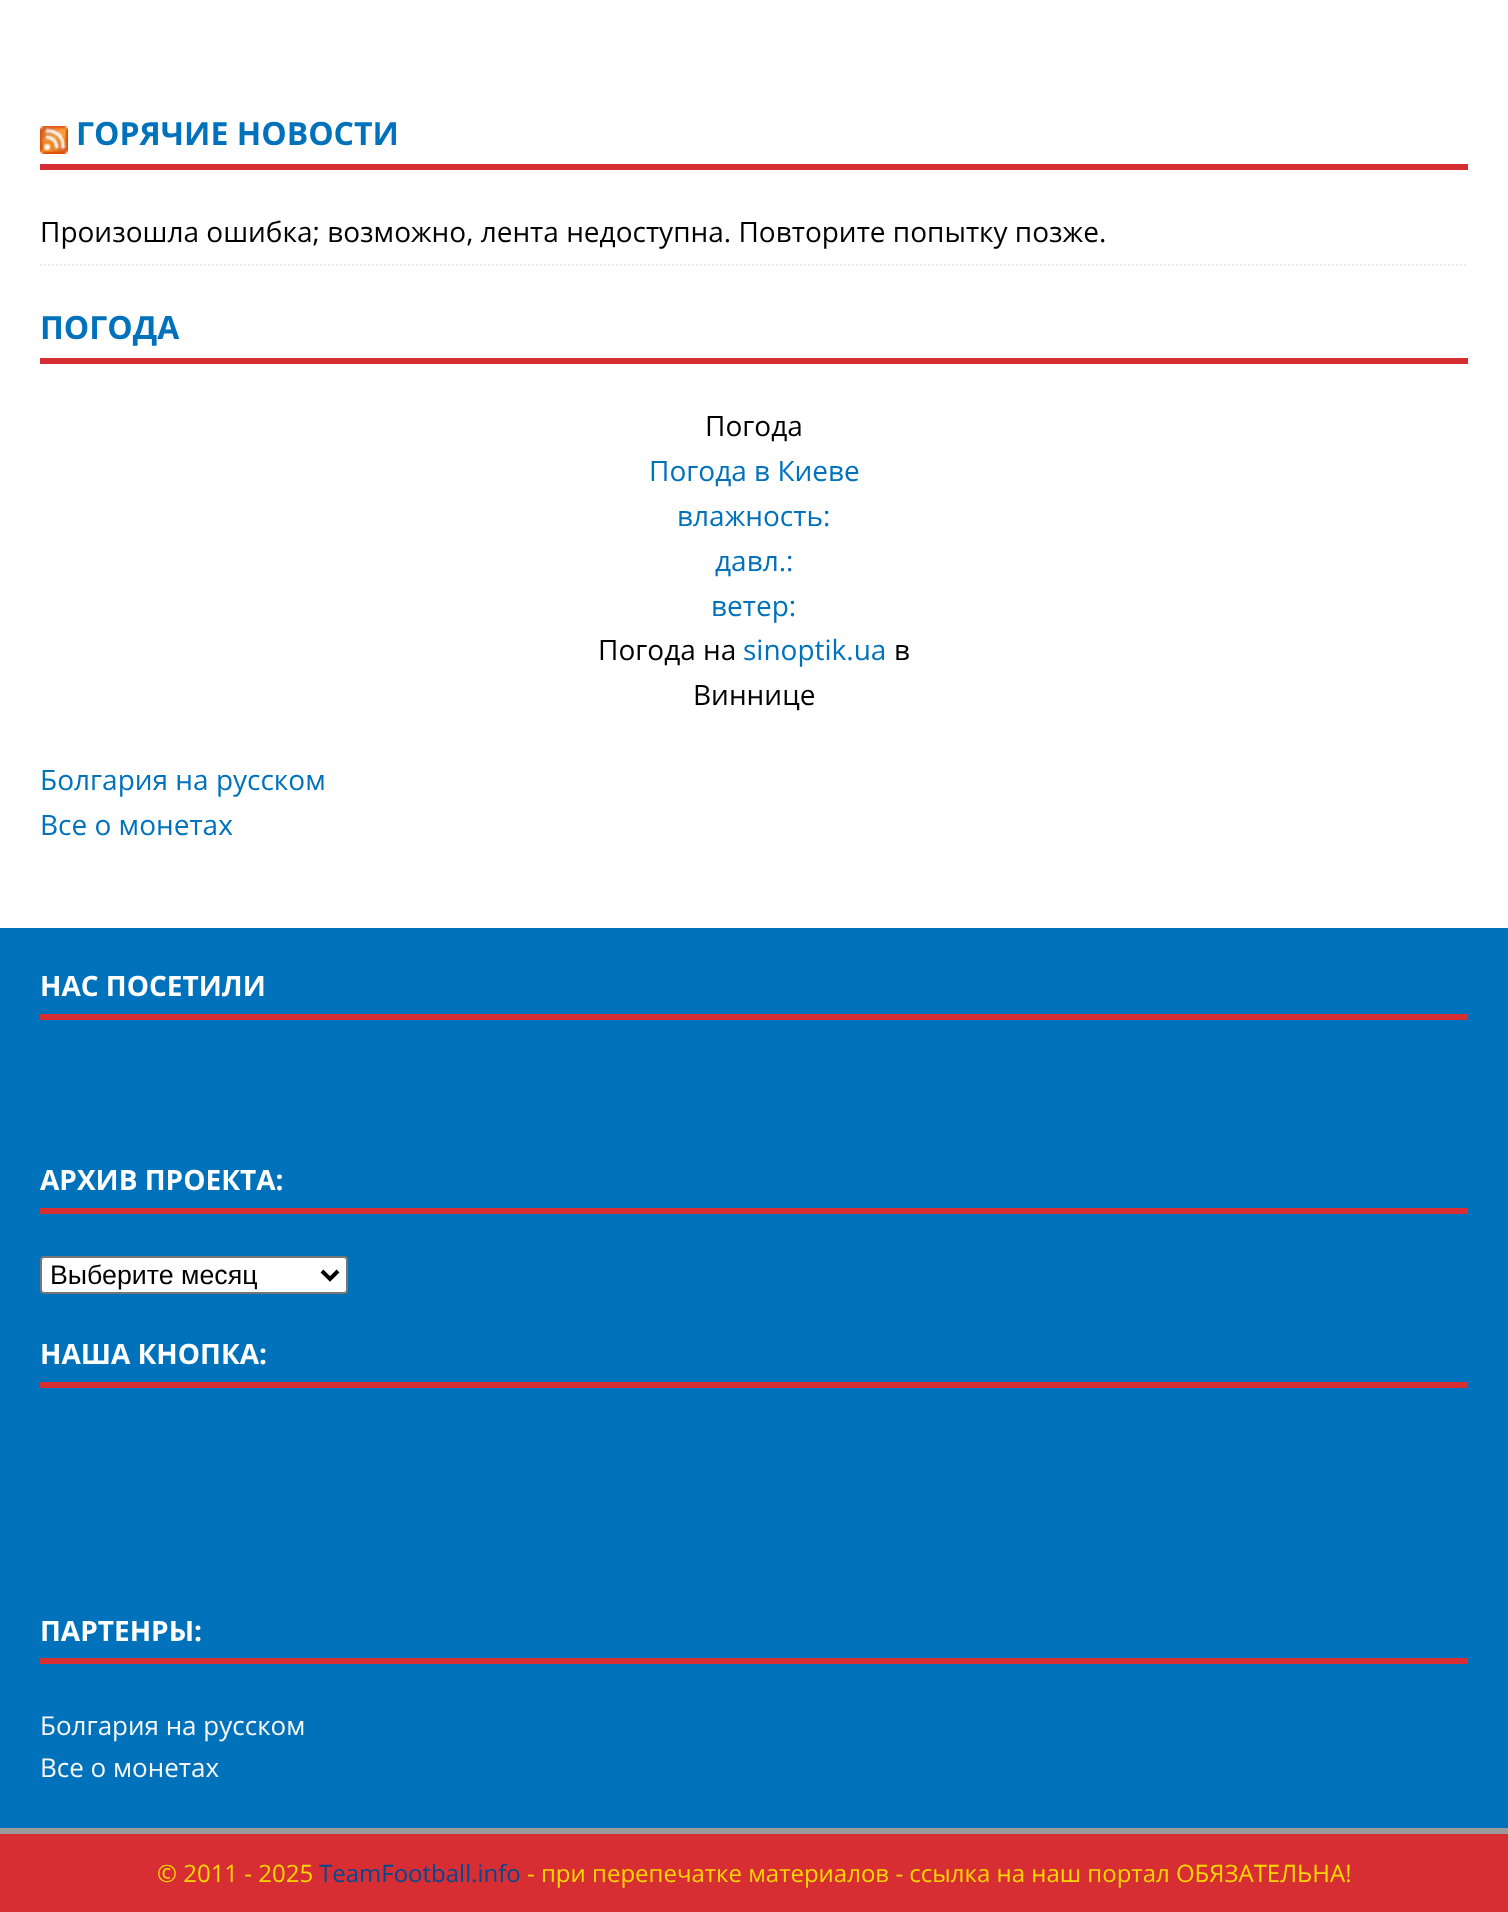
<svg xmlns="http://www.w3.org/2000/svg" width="1508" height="1912">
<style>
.a{font:bold 32px Open Sans;fill:#0072bc}
.b{font:28px Open Sans;fill:#000}
.c{font:28px Open Sans;fill:#0072bc}
.d{font:bold 28px Open Sans;fill:#fff}
.e{font:26.75px Liberation Sans;fill:#000}
.f{font:26px Open Sans;fill:#f7f7f7}
.g{font:24px Open Sans;fill:#ffd800}
.h{font:24px Open Sans;fill:#014990}
</style>
<rect width="100%" height="100%" fill="#fff"/>
<path fill="#d72e34" d="M40 164h1428v6H40z"/>
<image href="1.png" x="40" y="126" width="28" height="28"/>
<path fill="none" stroke="#ebebeb" stroke-width="2" stroke-dasharray="2 2" d="M40 265h1428"/>
<path fill="#d72e34" d="M40 358h1428v6H40z"/>
<path fill="#0072bc" d="M0 928h1508v900H0z"/>
<path fill="#d72e34" d="M40 1014h1428v6H40z"/>
<path fill="#d72e34" d="M40 1208h1428v6H40z"/>
<rect fill="#fff" stroke="#767676" stroke-width="2" x="41" y="1257" width="306" height="36" rx="3"/>
<path fill="none" stroke="#000" stroke-width="4" d="M322 1271l8 8l8-8"/>
<path fill="#d72e34" d="M40 1382h1428v6H40z"/>
<path fill="#d72e34" d="M40 1658h1428v6H40z"/>
<path fill="#d72e34" d="M0 1834h1508v78H0z"/>
<path fill="#999" d="M0 1828h1508v6H0z"/>
<text class="a" x="76" y="145">ГОРЯЧИЕ НОВОСТИ</text>
<text class="b" x="40" y="242">Произошла ошибка; возможно, лента недоступна. Повторите попытку позже.</text>
<text class="a" x="40" y="339">ПОГОДА</text>
<text class="b" x="705" y="436">Погода</text>
<text class="c" x="649" y="481">Погода в Киеве</text>
<text class="c" x="677" y="526">влажность:</text>
<text class="c" x="715" y="571">давл.:</text>
<text class="c" x="711" y="616">ветер:</text>
<text class="b" x="598" y="660">Погода на</text>
<text class="c" x="743" y="660">sinoptik.ua</text>
<text class="b" x="894" y="660">в</text>
<text class="b" x="693" y="705">Виннице</text>
<text class="c" x="40" y="790">Болгария на русском</text>
<text class="c" x="40" y="835">Все о монетах</text>
<text class="d" x="40" y="996">НАС ПОСЕТИЛИ</text>
<text class="d" x="40" y="1190">АРХИВ ПРОЕКТА:</text>
<text class="e" x="50" y="1284">Выберите месяц</text>
<text class="d" x="40" y="1364">НАША КНОПКА:</text>
<text class="d" x="40" y="1641">ПАРТЕНРЫ:</text>
<text class="f" x="40" y="1735">Болгария на русском</text>
<text class="f" x="40" y="1777">Все о монетах</text>
<text class="g" x="157" y="1882">© 2011 - 2025</text>
<text class="h" x="319" y="1882">TeamFootball.info</text>
<text class="g" x="527" y="1882">- при перепечатке материалов - ссылка на наш портал ОБЯЗАТЕЛЬНА!</text>
</svg>
